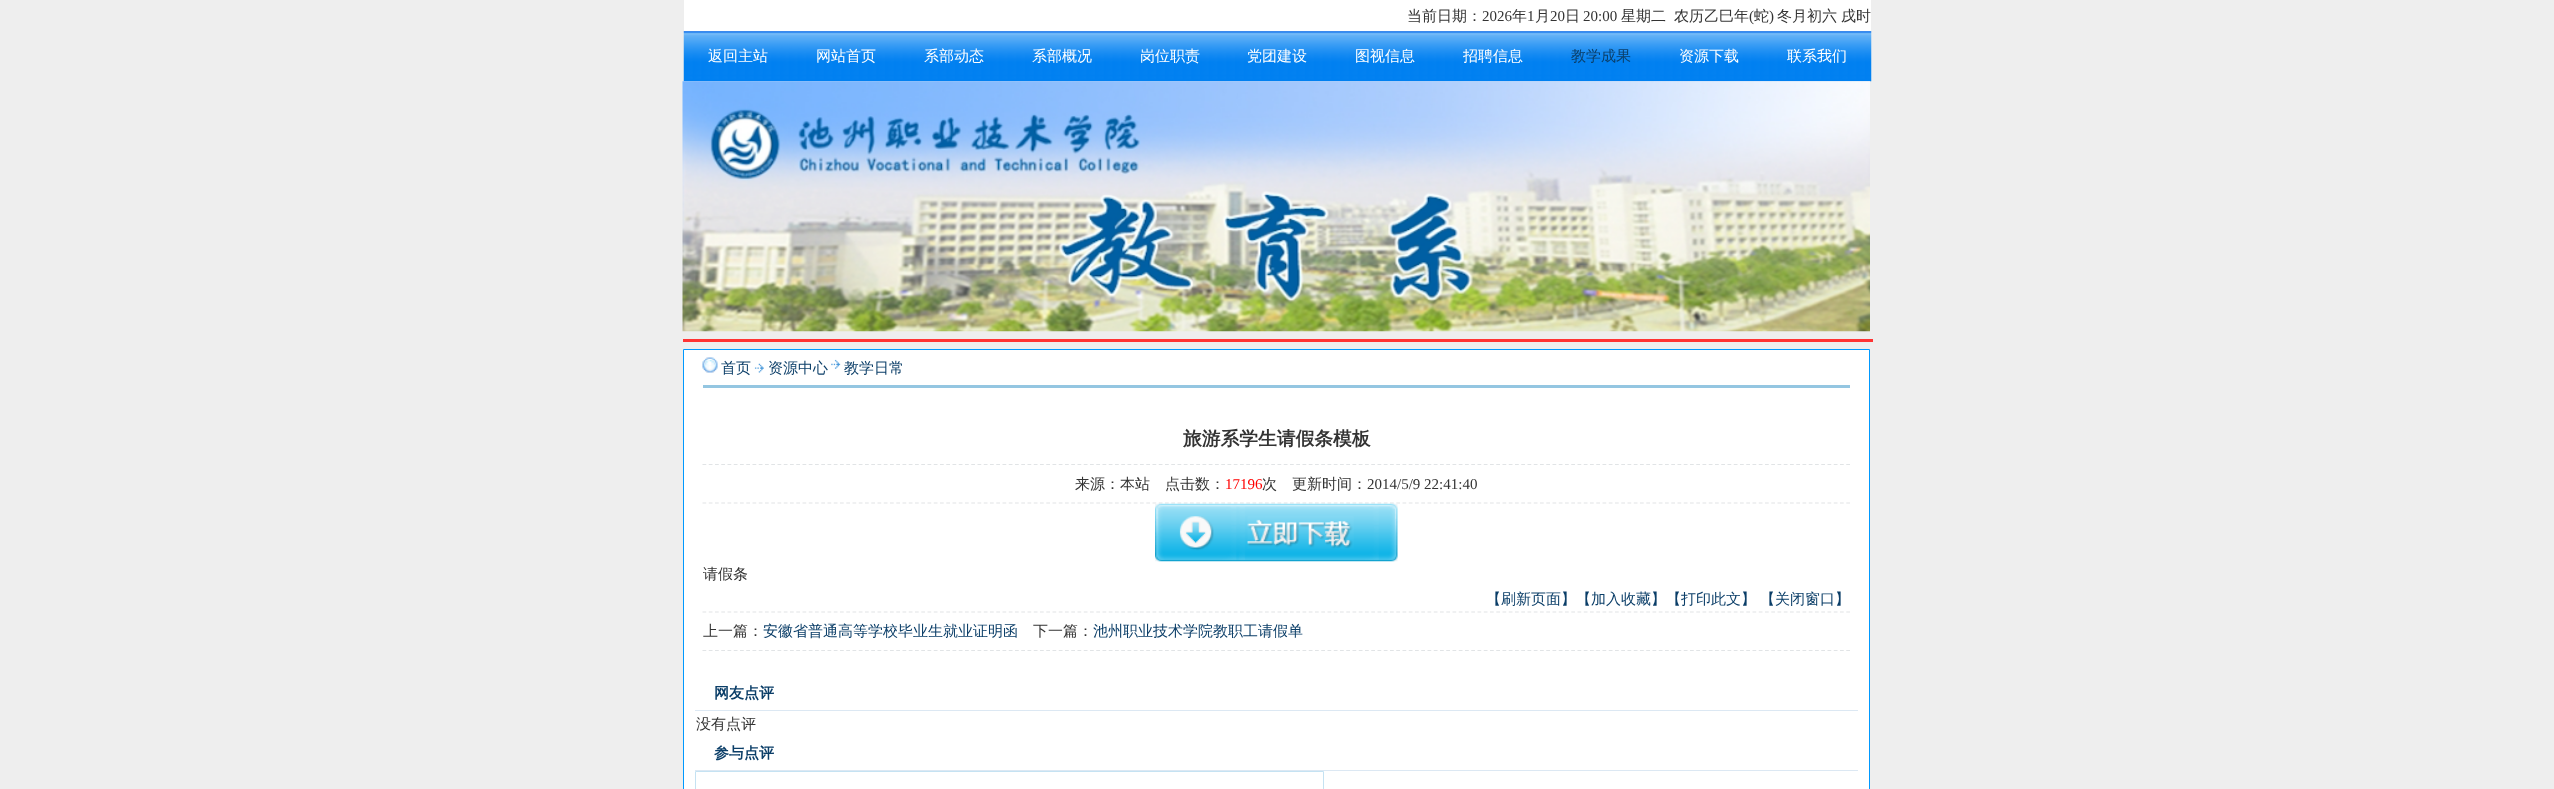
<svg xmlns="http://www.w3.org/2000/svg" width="2554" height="789">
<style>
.a{font:500 15px WenQuanYi Zen Hei;fill:#333}
.b{font:15px Liberation Serif;fill:#333}
.c{font:500 15px WenQuanYi Zen Hei;fill:#fff}
.d{font:500 15px WenQuanYi Zen Hei;fill:#0b3e68}
.e{font:bold 18.75px WenQuanYi Zen Hei;fill:#333}
.f{font:15px Liberation Serif;fill:#f00}
.g{font:bold 15px WenQuanYi Zen Hei;fill:#0b3e68}
</style>
<rect width="100%" height="100%" fill="#eee"/>
<path fill="#fff" d="M684 0h1187v31H684z"/>
<image href="1.png" x="683" y="31" width="1189" height="51"/>
<image href="2.png" x="682" y="81" width="1188" height="251"/>
<path fill="#f33" d="M683 339h1190v3H683z"/>
<path fill="#fff" stroke="#09f" d="M683.5 349.5h1186v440H683.5z"/>
<path fill="#94c6e1" d="M703 385h1147v3H703z"/>
<image href="3.png" x="702" y="357" width="16" height="16"/>
<image href="4.png" x="754" y="363" width="10" height="10"/>
<image href="5.png" x="831" y="359" width="10" height="10"/>
<path fill="none" stroke="#e1e4e6" stroke-width="1.2" stroke-dasharray="3.75 2.5" d="M702.5 464.5h1147.5"/>
<path fill="none" stroke="#e1e4e6" stroke-width="1.2" stroke-dasharray="3.75 2.5" d="M702.5 503h1147.5"/>
<image href="6.png" x="1155" y="503" width="243" height="59"/>
<path fill="none" stroke="#e1e4e6" stroke-width="1.2" stroke-dasharray="3.75 2.5" d="M702.5 612h1147.5"/>
<path fill="none" stroke="#e1e4e6" stroke-width="1.2" stroke-dasharray="3.75 2.5" d="M702.5 650.5h1147.5"/>
<path fill="#dce8f3" d="M695 710h1163v1H695z"/>
<path fill="#dce8f3" d="M695 770h1163v1H695z"/>
<path fill="none" stroke="#c5e2f2" d="M695.5 771.5h628v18H695.5z"/>
<text class="a" x="1407" y="21">当前日期：</text>
<text class="b" x="1482" y="21">2026</text>
<text class="a" x="1512" y="21">年</text>
<text class="b" x="1527" y="21">1</text>
<text class="a" x="1535" y="21">月</text>
<text class="b" x="1550" y="21">20</text>
<text class="a" x="1565" y="21">日</text>
<text class="b" x="1583" y="21">20:00</text>
<text class="a" x="1621" y="21">星期二</text>
<text class="a" x="1674" y="21">农历乙巳年</text>
<text class="b" x="1749" y="21">(</text>
<text class="a" x="1754" y="21">蛇</text>
<text class="b" x="1769" y="21">)</text>
<text class="a" x="1777" y="21">冬月初六</text>
<text class="a" x="1841" y="21">戌时</text>
<text class="c" x="708" y="61">返回主站</text>
<text class="c" x="816" y="61">网站首页</text>
<text class="c" x="924" y="61">系部动态</text>
<text class="c" x="1032" y="61">系部概况</text>
<text class="c" x="1140" y="61">岗位职责</text>
<text class="c" x="1247" y="61">党团建设</text>
<text class="c" x="1355" y="61">图视信息</text>
<text class="c" x="1463" y="61">招聘信息</text>
<text class="d" x="1571" y="61">教学成果</text>
<text class="c" x="1679" y="61">资源下载</text>
<text class="c" x="1787" y="61">联系我们</text>
<text class="d" x="721" y="373">首页</text>
<text class="d" x="768" y="373">资源中心</text>
<text class="d" x="844" y="373">教学日常</text>
<text class="e" x="1183" y="445">旅游系学生请假条模板</text>
<text class="a" x="1075" y="489">来源：本站　点击数：</text>
<text class="f" x="1225" y="489">17196</text>
<text class="a" x="1262" y="489">次　更新时间：</text>
<text class="b" x="1367" y="489">2014/5/9 22:41:40</text>
<text class="a" x="703" y="579">请假条</text>
<text class="d" x="1486" y="604">【刷新页面】【加入收藏】【打印此文】</text>
<text class="d" x="1760" y="604">【关闭窗口】</text>
<text class="a" x="703" y="636">上一篇：</text>
<text class="d" x="763" y="636">安徽省普通高等学校毕业生就业证明函</text>
<text class="a" x="1033" y="636">下一篇：</text>
<text class="d" x="1093" y="636">池州职业技术学院教职工请假单</text>
<text class="g" x="714" y="698">网友点评</text>
<text class="a" x="696" y="729">没有点评</text>
<text class="g" x="714" y="758">参与点评</text>
</svg>
